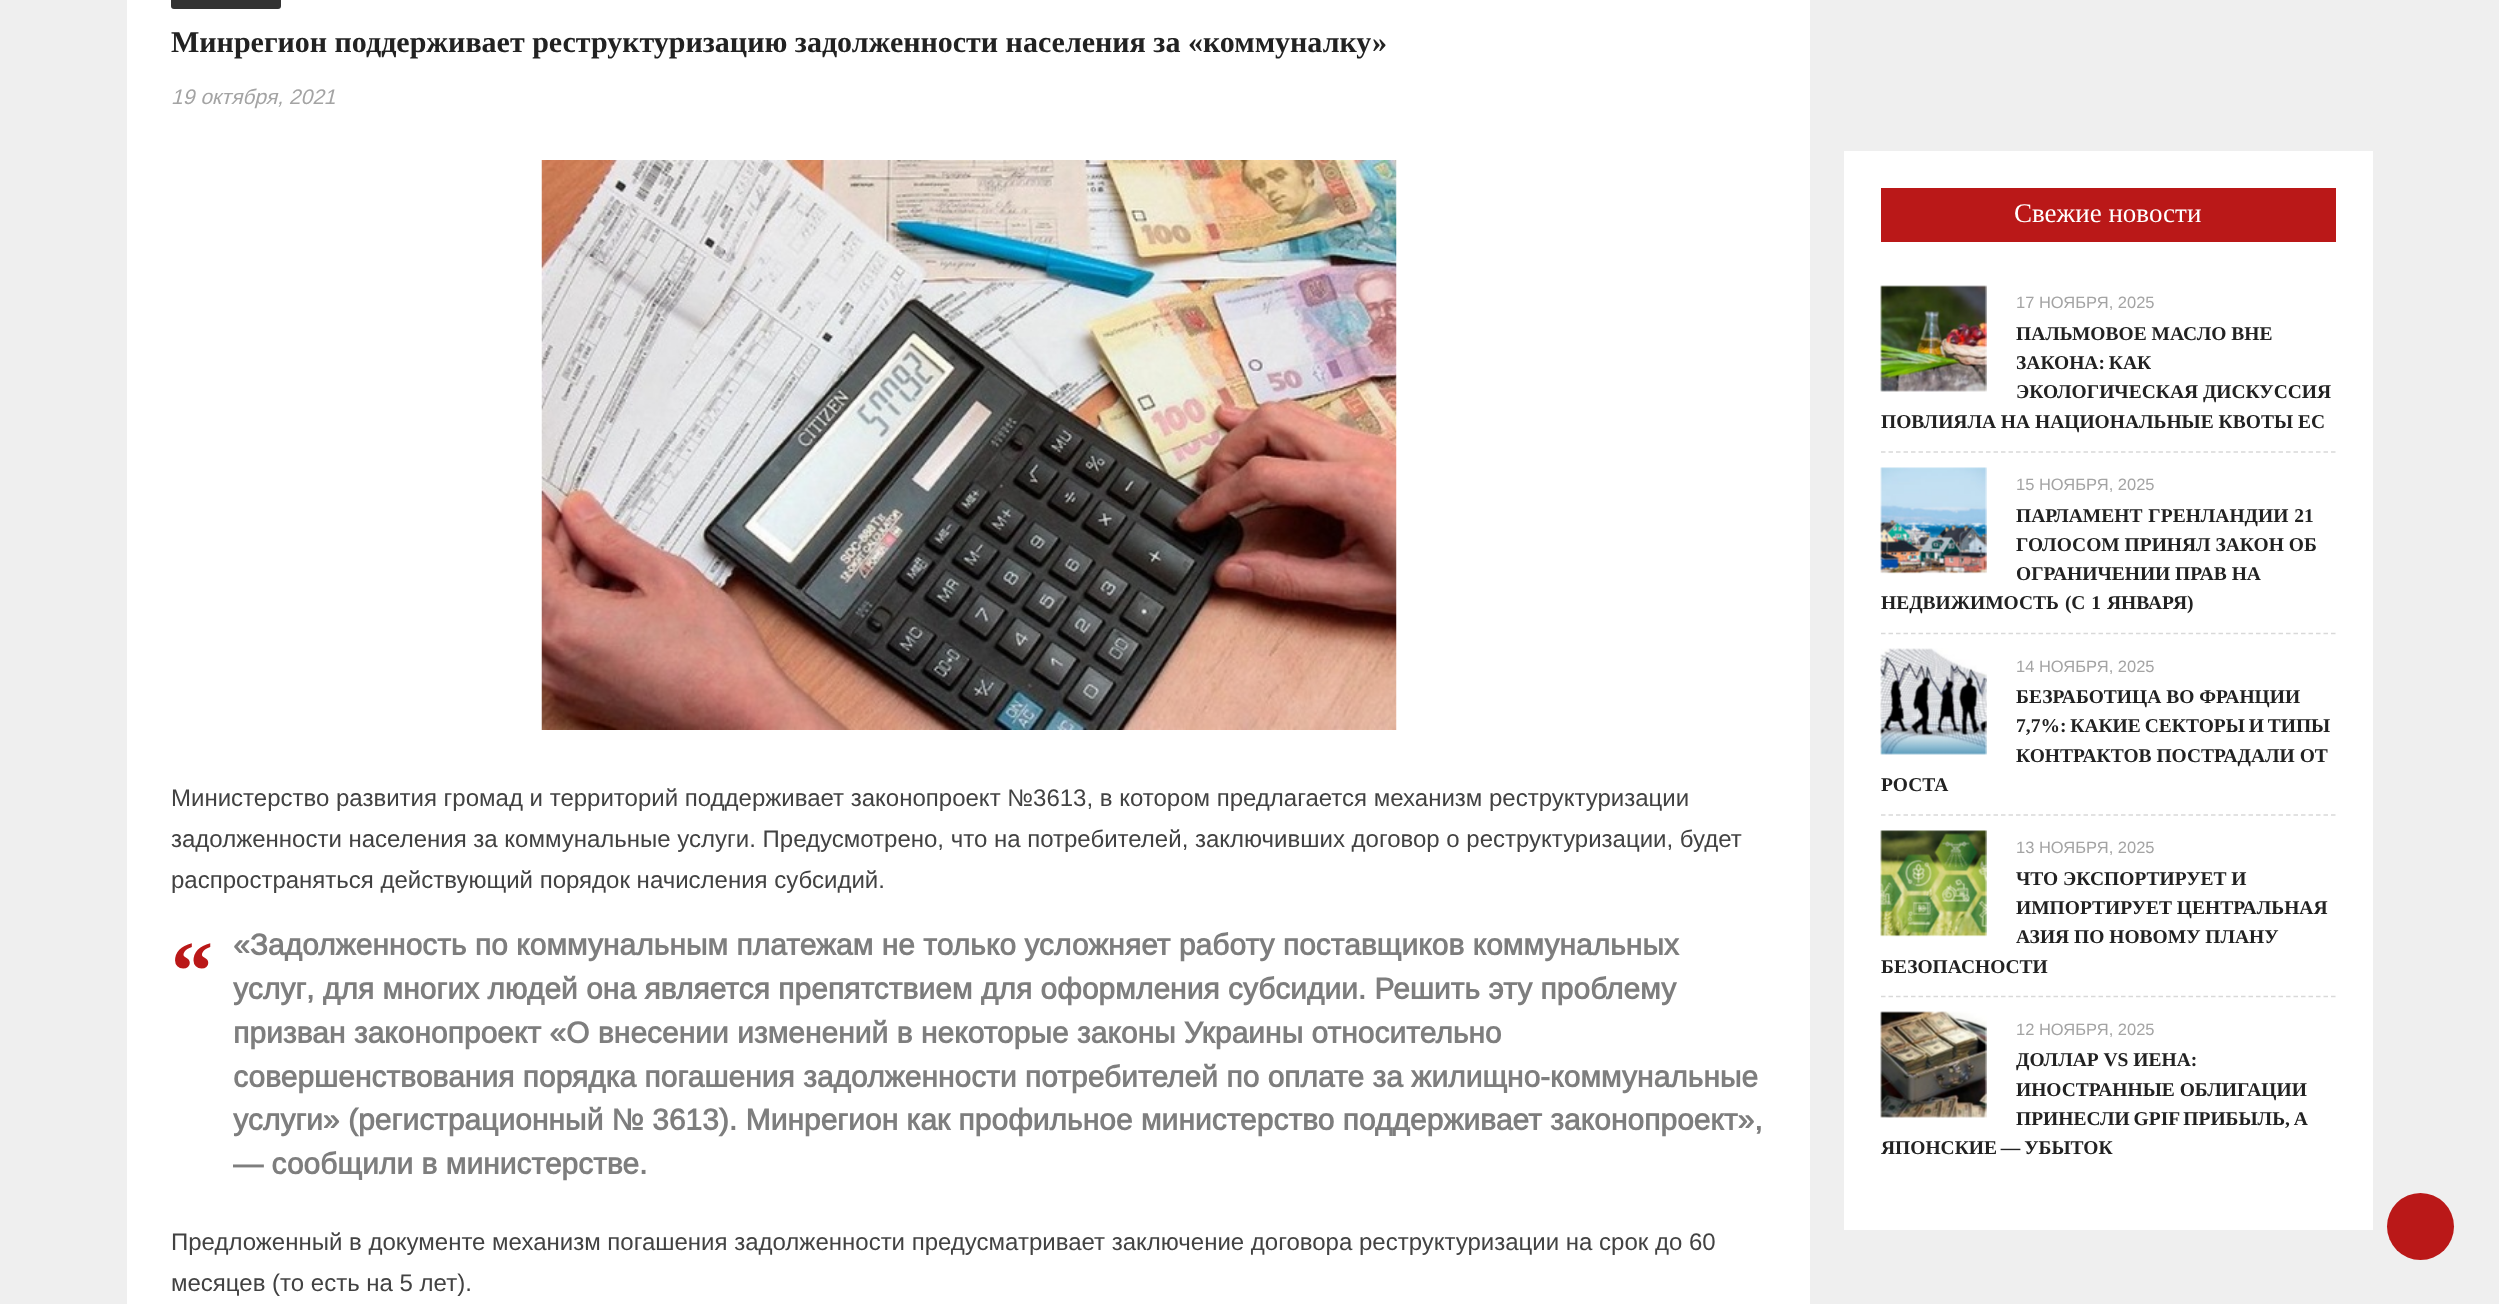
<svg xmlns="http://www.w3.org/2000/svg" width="2499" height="1304">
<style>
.a{font:bold 30px Liberation Serif;fill:#222}
.b{font:italic 21px Arimo;fill:#a4a4a4}
.c{font:24px Arimo;fill:#424242}
.d{font:bold 84px Liberation Serif;fill:#ba1818}
.e{font:bold 30px Arimo;fill:#7e7e7e}
.f{font:27px Liberation Serif;fill:#fff}
.g{font:16.5px Arimo;fill:#a4a4a4}
.h{font:bold 19.5px Liberation Serif;fill:#222}
</style>
<rect width="100%" height="100%" fill="#efefef"/>
<path fill="#fff" d="M127 0h1683v1304H127z"/>
<rect fill="#333" x="171" y="-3" width="110" height="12" rx="3"/>
<image href="1.png" x="541" y="160" width="856" height="570"/>
<path fill="#fff" d="M1844 151h529v1079H1844z"/>
<path fill="#ba1818" d="M1881 188h455v54H1881z"/>
<path fill="none" stroke="#d9d9d9" stroke-width="1.5" stroke-dasharray="4.5 3" d="M1881 452h454.5"/>
<image href="2.png" x="1880" y="285" width="107" height="107"/>
<path fill="none" stroke="#d9d9d9" stroke-width="1.5" stroke-dasharray="4.5 3" d="M1881 633.5h454.5"/>
<image href="3.png" x="1880" y="467" width="107" height="107"/>
<path fill="none" stroke="#d9d9d9" stroke-width="1.5" stroke-dasharray="4.5 3" d="M1881 815h454.5"/>
<image href="4.png" x="1880" y="648" width="107" height="107"/>
<path fill="none" stroke="#d9d9d9" stroke-width="1.5" stroke-dasharray="4.5 3" d="M1881 996.5h454.5"/>
<image href="5.png" x="1880" y="830" width="107" height="107"/>
<image href="6.png" x="1880" y="1011" width="107" height="107"/>
<circle fill="#ba1818" cx="2420.5" cy="1226.5" r="33.5"/>
<text class="a" x="171" y="52">Минрегион поддерживает реструктуризацию задолженности населения за «коммуналку»</text>
<text class="b" x="171" y="104">19 октября, 2021</text>
<text class="c" x="171" y="806">Министерство развития громад и территорий поддерживает законопроект №3613, в котором предлагается механизм реструктуризации</text>
<text class="c" x="171" y="847">задолженности населения за коммунальные услуги. Предусмотрено, что на потребителей, заключивших договор о реструктуризации, будет</text>
<text class="c" x="171" y="888">распространяться действующий порядок начисления субсидий.</text>
<text class="d" x="171" y="999">“</text>
<text class="e" x="233" y="955">«Задолженность по коммунальным платежам не только усложняет работу поставщиков коммунальных</text>
<text class="e" x="233" y="999">услуг, для многих людей она является препятствием для оформления субсидии. Решить эту проблему</text>
<text class="e" x="233" y="1043">призван законопроект «О внесении изменений в некоторые законы Украины относительно</text>
<text class="e" x="233" y="1087">совершенствования порядка погашения задолженности потребителей по оплате за жилищно-коммунальные</text>
<text class="e" x="233" y="1130">услуги» (регистрационный № 3613). Минрегион как профильное министерство поддерживает законопроект»,</text>
<text class="e" x="233" y="1174">— сообщили в министерстве.</text>
<text class="c" x="171" y="1250">Предложенный в документе механизм погашения задолженности предусматривает заключение договора реструктуризации на срок до 60</text>
<text class="c" x="171" y="1291">месяцев (то есть на 5 лет).</text>
<text class="f" x="2014" y="222">Свежие новости</text>
<text class="g" x="2016" y="308">17 НОЯБРЯ, 2025</text>
<text class="h" x="2016" y="340">ПАЛЬМОВОЕ МАСЛО ВНЕ</text>
<text class="h" x="2016" y="369" word-spacing="-1">ЗАКОНА: КАК</text>
<text class="h" x="2016" y="398">ЭКОЛОГИЧЕСКАЯ ДИСКУССИЯ</text>
<text class="h" x="1881" y="428">ПОВЛИЯЛА НА НАЦИОНАЛЬНЫЕ КВОТЫ ЕС</text>
<text class="g" x="2016" y="490">15 НОЯБРЯ, 2025</text>
<text class="h" x="2016" y="522" word-spacing="1">ПАРЛАМЕНТ ГРЕНЛАНДИИ 21</text>
<text class="h" x="2016" y="551">ГОЛОСОМ ПРИНЯЛ ЗАКОН ОБ</text>
<text class="h" x="2016" y="580">ОГРАНИЧЕНИИ ПРАВ НА</text>
<text class="h" x="1881" y="609" word-spacing="1">НЕДВИЖИМОСТЬ (С 1 ЯНВАРЯ)</text>
<text class="g" x="2016" y="672">14 НОЯБРЯ, 2025</text>
<text class="h" x="2016" y="703">БЕЗРАБОТИЦА ВО ФРАНЦИИ</text>
<text class="h" x="2016" y="732" word-spacing="-1">7,7%: КАКИЕ СЕКТОРЫ И ТИПЫ</text>
<text class="h" x="2016" y="762">КОНТРАКТОВ ПОСТРАДАЛИ ОТ</text>
<text class="h" x="1881" y="791">РОСТА</text>
<text class="g" x="2016" y="853">13 НОЯБРЯ, 2025</text>
<text class="h" x="2016" y="885">ЧТО ЭКСПОРТИРУЕТ И</text>
<text class="h" x="2016" y="914">ИМПОРТИРУЕТ ЦЕНТРАЛЬНАЯ</text>
<text class="h" x="2016" y="943">АЗИЯ ПО НОВОМУ ПЛАНУ</text>
<text class="h" x="1881" y="973">БЕЗОПАСНОСТИ</text>
<text class="g" x="2016" y="1035">12 НОЯБРЯ, 2025</text>
<text class="h" x="2016" y="1066">ДОЛЛАР VS ИЕНА:</text>
<text class="h" x="2016" y="1096">ИНОСТРАННЫЕ ОБЛИГАЦИИ</text>
<text class="h" x="2016" y="1125" word-spacing="-1">ПРИНЕСЛИ GPIF ПРИБЫЛЬ, А</text>
<text class="h" x="1881" y="1154" word-spacing="-1">ЯПОНСКИЕ — УБЫТОК</text>
</svg>
